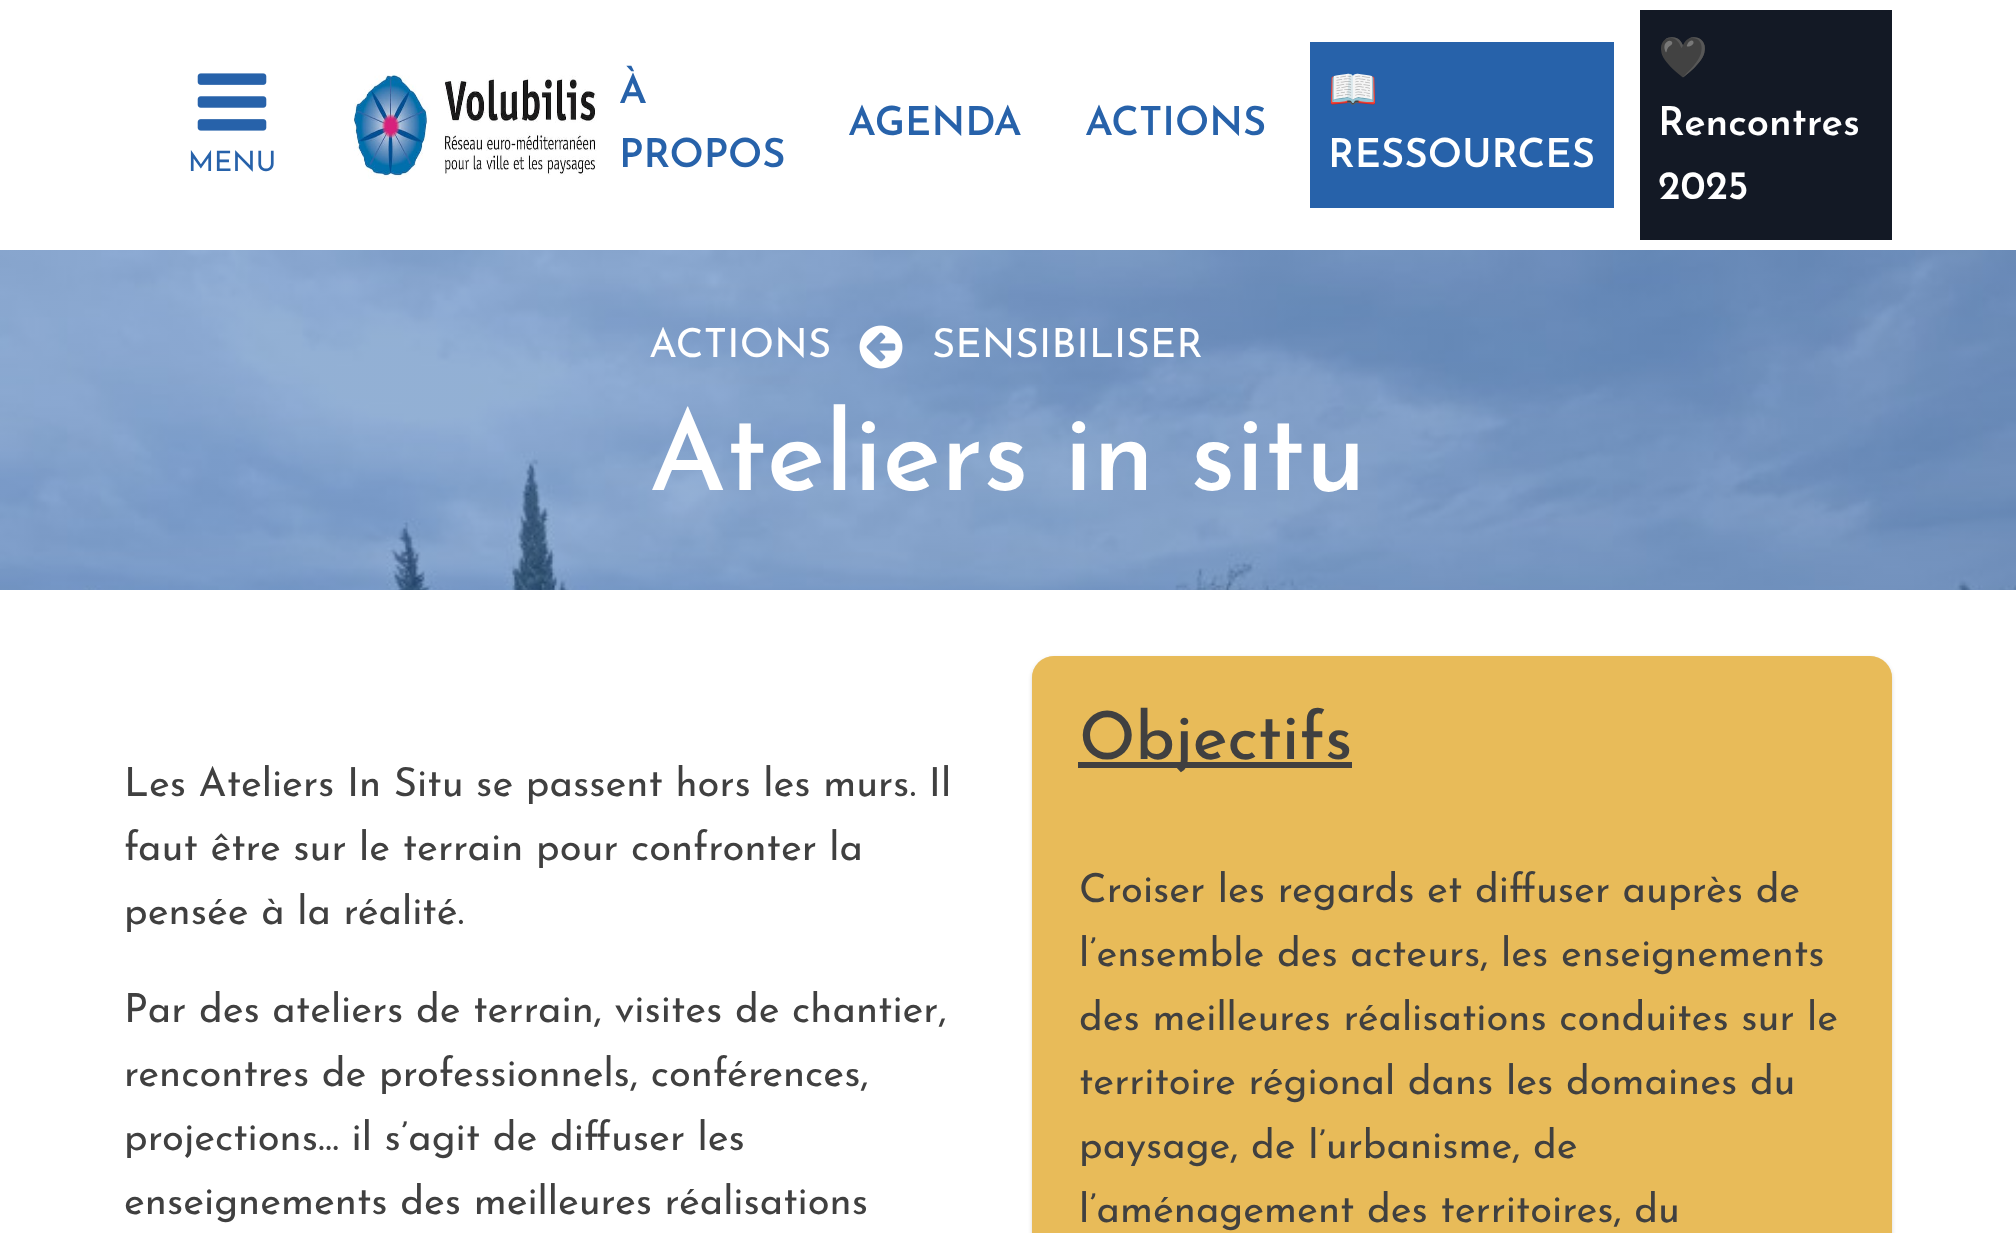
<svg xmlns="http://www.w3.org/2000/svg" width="2016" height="1233">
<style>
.a{font:28px Josefin Sans;fill:#2762aa}
.b{font:600 40px Josefin Sans;fill:#2762aa}
.c{font:bold 40px Noto Color Emoji;fill:#fff}
.d{font:600 40px Josefin Sans;fill:#fff}
.e{font:40px Josefin Sans;letter-spacing:0.25px;fill:#fff}
.f{font:500 110.5px Josefin Sans;fill:#fff}
.g{font:40px Josefin Sans;fill:#404040}
.h{font:500 66px Josefin Sans;fill:#404040}
</style>
<rect width="100%" height="100%" fill="#fff"/>
<image href="1.png" x="197" y="73" width="70" height="58"/>
<image href="2.png" x="353" y="74" width="244" height="105"/>
<path fill="#2762aa" d="M1310 42h304v166H1310z"/>
<path fill="#131925" d="M1640 10h252v230H1640z"/>
<image href="3.png" x="0" y="250" width="2016" height="340"/>
<image href="4.png" x="859" y="325" width="44" height="44"/>
<rect fill="#00000026" filter="blur(2px)" x="1032" y="658" width="860" height="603" rx="22"/>
<rect fill="#e8bb59" x="1032" y="656" width="860" height="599" rx="22"/>
<rect fill="#e8bb5980" x="1032" y="656" width="860" height="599" rx="22"/>
<path fill="#404040" d="M1078 762h274v6H1078z"/>
<text class="a" x="188" y="171">MENU</text>
<text class="b" x="619" y="103">À</text>
<text class="b" x="619" y="167">PROPOS</text>
<text class="b" x="848" y="135">AGENDA</text>
<text class="b" x="1085" y="135">ACTIONS</text>
<text class="c" x="1328" y="103">📖</text>
<text class="d" x="1328" y="167">RESSOURCES</text>
<text class="c" x="1658" y="71">🖤</text>
<text class="d" x="1658" y="135">Rencontres</text>
<text class="d" x="1658" y="199">2025</text>
<text class="e" x="649" y="357">ACTIONS</text>
<text class="e" x="932" y="357">SENSIBILISER</text>
<text class="f" x="649" y="490">Ateliers in situ</text>
<text class="g" x="124" y="796">Les Ateliers In Situ se passent hors les murs. Il</text>
<text class="g" x="124" y="860">faut être sur le terrain pour confronter la</text>
<text class="g" x="124" y="924">pensée à la réalité.</text>
<text class="g" x="124" y="1022">Par des ateliers de terrain, visites de chantier,</text>
<text class="g" x="124" y="1086">rencontres de professionnels, conférences,</text>
<text class="g" x="124" y="1150">projections… il s’agit de diffuser les</text>
<text class="g" x="124" y="1214">enseignements des meilleures réalisations</text>
<text class="h" x="1079" y="759">Objectifs</text>
<text class="g" x="1079" y="902">Croiser les regards et diffuser auprès de</text>
<text class="g" x="1079" y="966">l’ensemble des acteurs, les enseignements</text>
<text class="g" x="1079" y="1030">des meilleures réalisations conduites sur le</text>
<text class="g" x="1079" y="1094">territoire régional dans les domaines du</text>
<text class="g" x="1079" y="1158">paysage, de l’urbanisme, de</text>
<text class="g" x="1079" y="1222">l’aménagement des territoires, du</text>
</svg>
